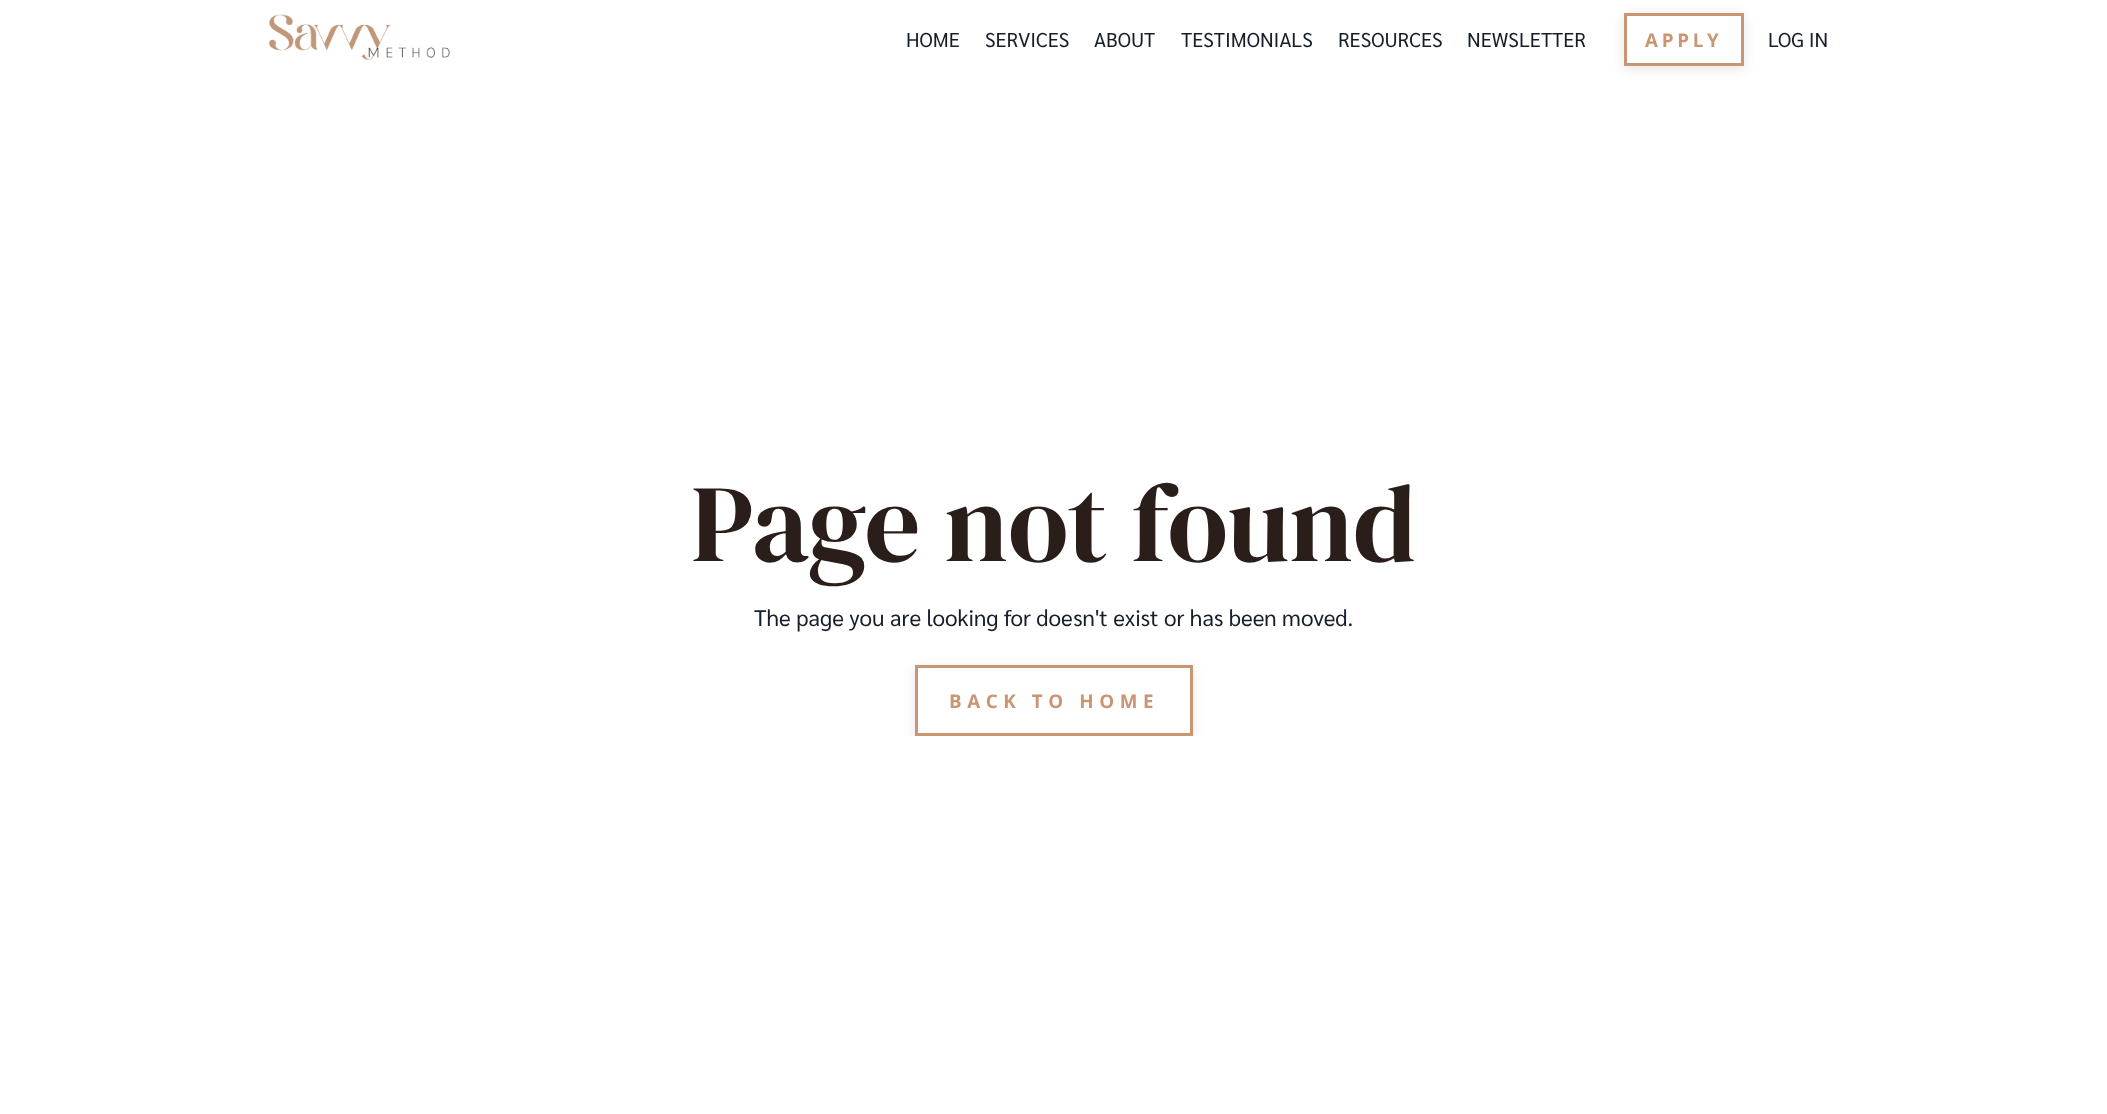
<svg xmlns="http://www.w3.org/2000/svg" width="2107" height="1114">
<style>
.a{font:20px Sarabun;fill:#161e2a}
.b{font:bold 18.75px Open Sans;letter-spacing:3.75px;fill:#c99573}
.c{font:110px DM Serif Display;fill:#291e19}
.d{font:22.5px Sarabun;fill:#161e2a}
.e{font:bold 18.75px Open Sans;letter-spacing:5.6px;fill:#c99573}
</style>
<defs>
<clipPath id="clip1"><path d="M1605 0h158v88h-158zm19 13h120v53h-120z" clip-rule="evenodd"/></clipPath>
<clipPath id="clip2"><rect x="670" y="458" width="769" height="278" rx="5"/></clipPath>
<clipPath id="clip3"><path d="M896 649h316v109h-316zm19 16h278v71h-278z" clip-rule="evenodd"/></clipPath>
</defs>
<rect width="100%" height="100%" fill="#fff"/>
<image href="1.png" x="269" y="14" width="181" height="46"/>
<g clip-path="url(#clip1)">
<path fill="#0000001a" filter="blur(6px)" d="M1624 15h120v54H1624z"/>
</g>
<path fill="none" stroke="#c99573" stroke-width="3" d="M1625.5 14.5h117v50H1625.5z"/>
<g clip-path="url(#clip2)">
<g clip-path="url(#clip3)">
<path fill="#0000001a" filter="blur(6px)" d="M915 668h278v71H915z"/>
</g>
</g>
<path fill="none" stroke="#c99573" stroke-width="3" d="M916.5 666.5h275v68H916.5z"/>
<text class="a" x="906" y="47">HOME</text>
<text class="a" x="985" y="47">SERVICES</text>
<text class="a" x="1094" y="47">ABOUT</text>
<text class="a" x="1181" y="47">TESTIMONIALS</text>
<text class="a" x="1338" y="47">RESOURCES</text>
<text class="a" x="1467" y="47">NEWSLETTER</text>
<text class="b" x="1645" y="47">APPLY</text>
<text class="a" x="1768" y="47">LOG IN</text>
<text class="c" x="691" y="561">Page not found</text>
<text class="d" x="754" y="626">The page you are looking for doesn't exist or has been moved.</text>
<text class="e" x="949" y="708">BACK TO HOME</text>
</svg>
